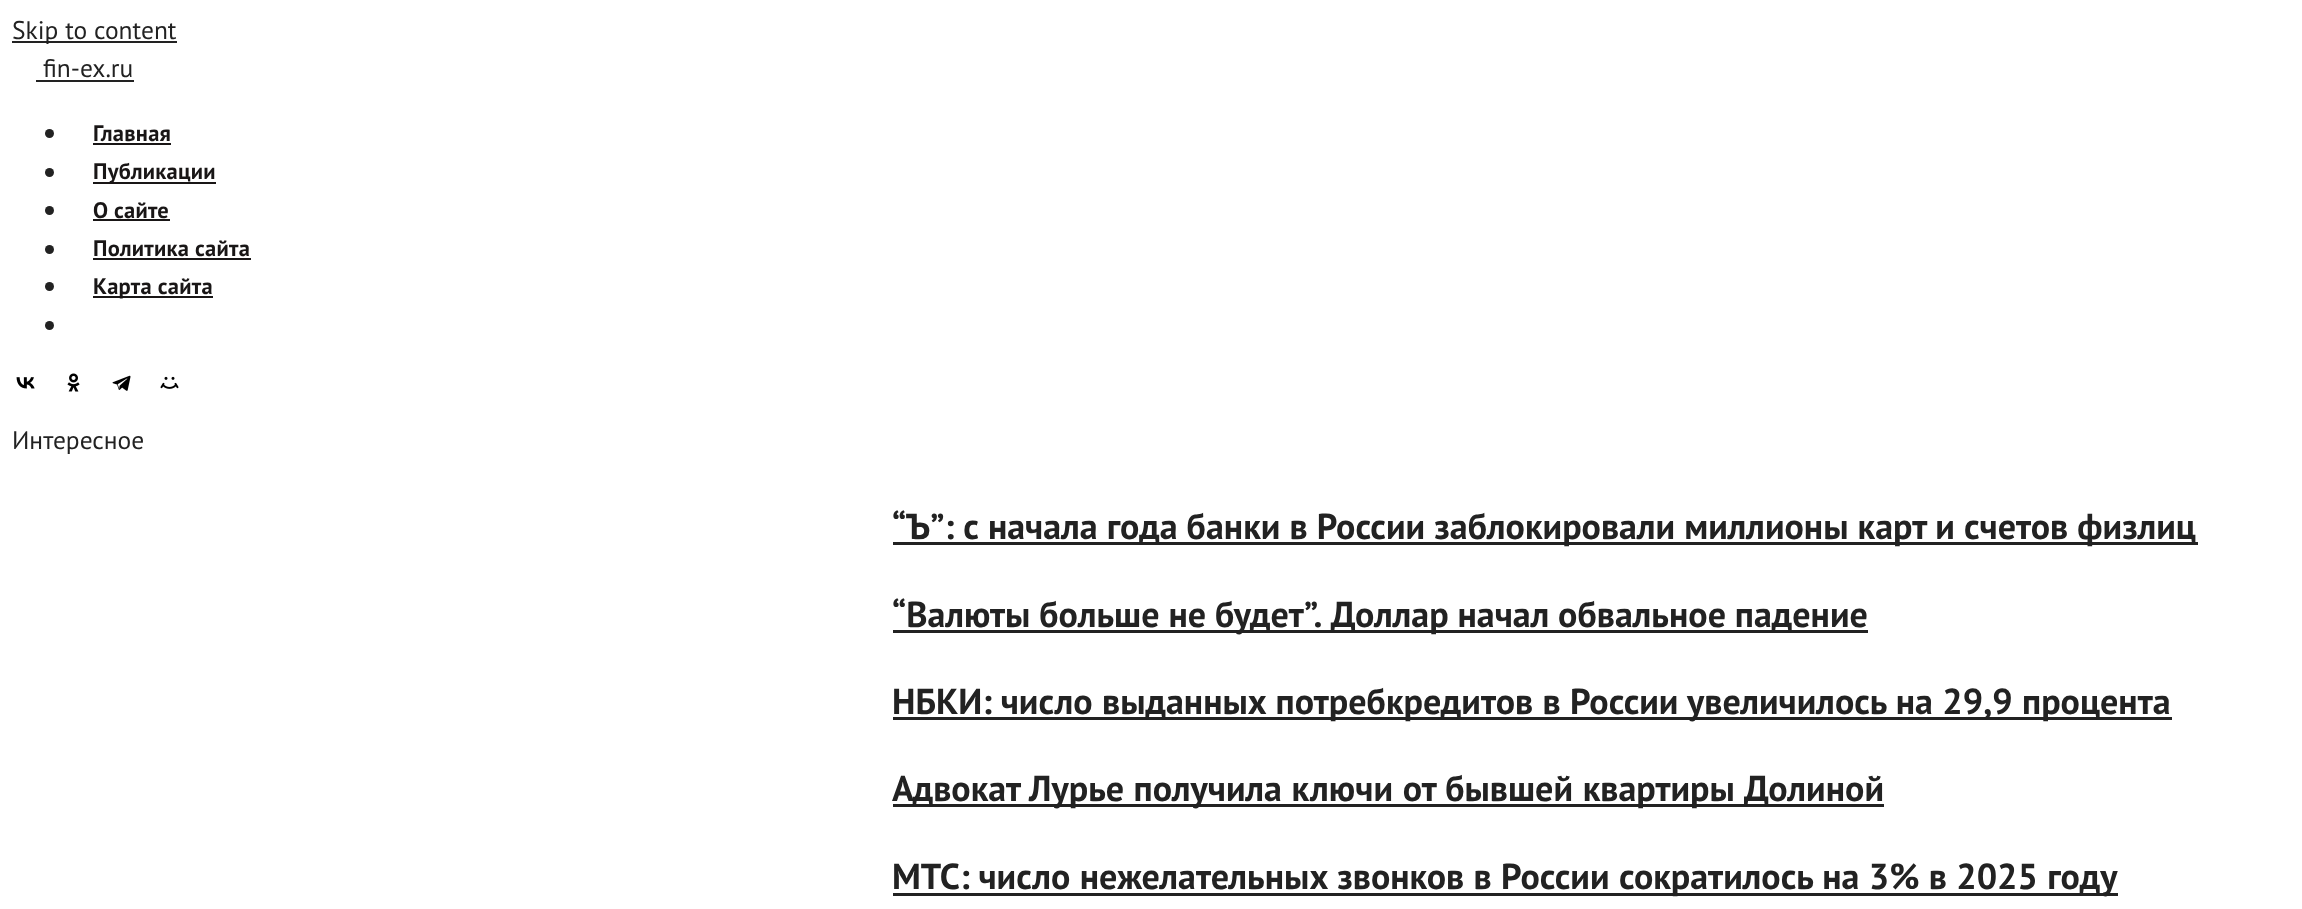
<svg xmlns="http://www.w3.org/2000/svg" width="2302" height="909">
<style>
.a{font:25.5px PT Sans;fill:#222}
.b{font:bold 22.5px PT Sans;letter-spacing:0.25px;fill:#191616}
.c{font:bold 36px PT Sans;fill:#222}
</style>
<rect width="100%" height="100%" fill="#fff"/>
<path fill="#222" d="M12 41h165v2H12z"/>
<path fill="#222" d="M36 80h98v2H36z"/>
<circle fill="#222" cx="49.5" cy="133.5" r="4.5"/>
<path fill="#191616" d="M93 143h78v2H93z"/>
<circle fill="#222" cx="49.5" cy="172.5" r="4.5"/>
<path fill="#191616" d="M93 182h123v2H93z"/>
<circle fill="#222" cx="49.5" cy="210.5" r="4.5"/>
<path fill="#191616" d="M93 219h77v2H93z"/>
<circle fill="#222" cx="49.5" cy="249.5" r="4.5"/>
<path fill="#191616" d="M93 258h158v2H93z"/>
<circle fill="#222" cx="49.5" cy="286.5" r="4.5"/>
<path fill="#191616" d="M93 296h120v2H93z"/>
<circle fill="#222" cx="49.5" cy="325.5" r="4.5"/>
<image href="1.png" x="16" y="377" width="19" height="12"/>
<image href="2.png" x="67" y="373" width="13" height="19"/>
<image href="3.png" x="112" y="375" width="19" height="16"/>
<image href="4.png" x="160" y="376" width="19" height="13"/>
<path fill="#222" d="M893 542h1305v3H893z"/>
<path fill="#222" d="M893 630h975v3H893z"/>
<path fill="#222" d="M893 717h1279v3H893z"/>
<path fill="#222" d="M893 804h991v3H893z"/>
<path fill="#222" d="M893 893h1225v3H893z"/>
<text class="a" x="12" y="39">Skip to content</text>
<text class="a" x="43" y="77">fin-ex.ru</text>
<text class="b" x="93" y="141">Главная</text>
<text class="b" x="93" y="179">Публикации</text>
<text class="b" x="93" y="218">О сайте</text>
<text class="b" x="93" y="256">Политика сайта</text>
<text class="b" x="93" y="294">Карта сайта</text>
<text class="a" x="12" y="449">Интересное</text>
<text class="c" x="892" y="539">“Ъ”: c начала года банки в России заблокировали миллионы карт и счетов физлиц</text>
<text class="c" x="892" y="627" word-spacing="-0.25">“Валюты больше не будет”. Доллар начал обвальное падение</text>
<text class="c" x="892" y="714" word-spacing="0.25">НБКИ: число выданных потребкредитов в России увеличилось на 29,9 процента</text>
<text class="c" x="892" y="801" word-spacing="0.5">Адвокат Лурье получила ключи от бывшей квартиры Долиной</text>
<text class="c" x="892" y="889" word-spacing="0.25">МТС: число нежелательных звонков в России сократилось на 3% в 2025 году</text>
</svg>
